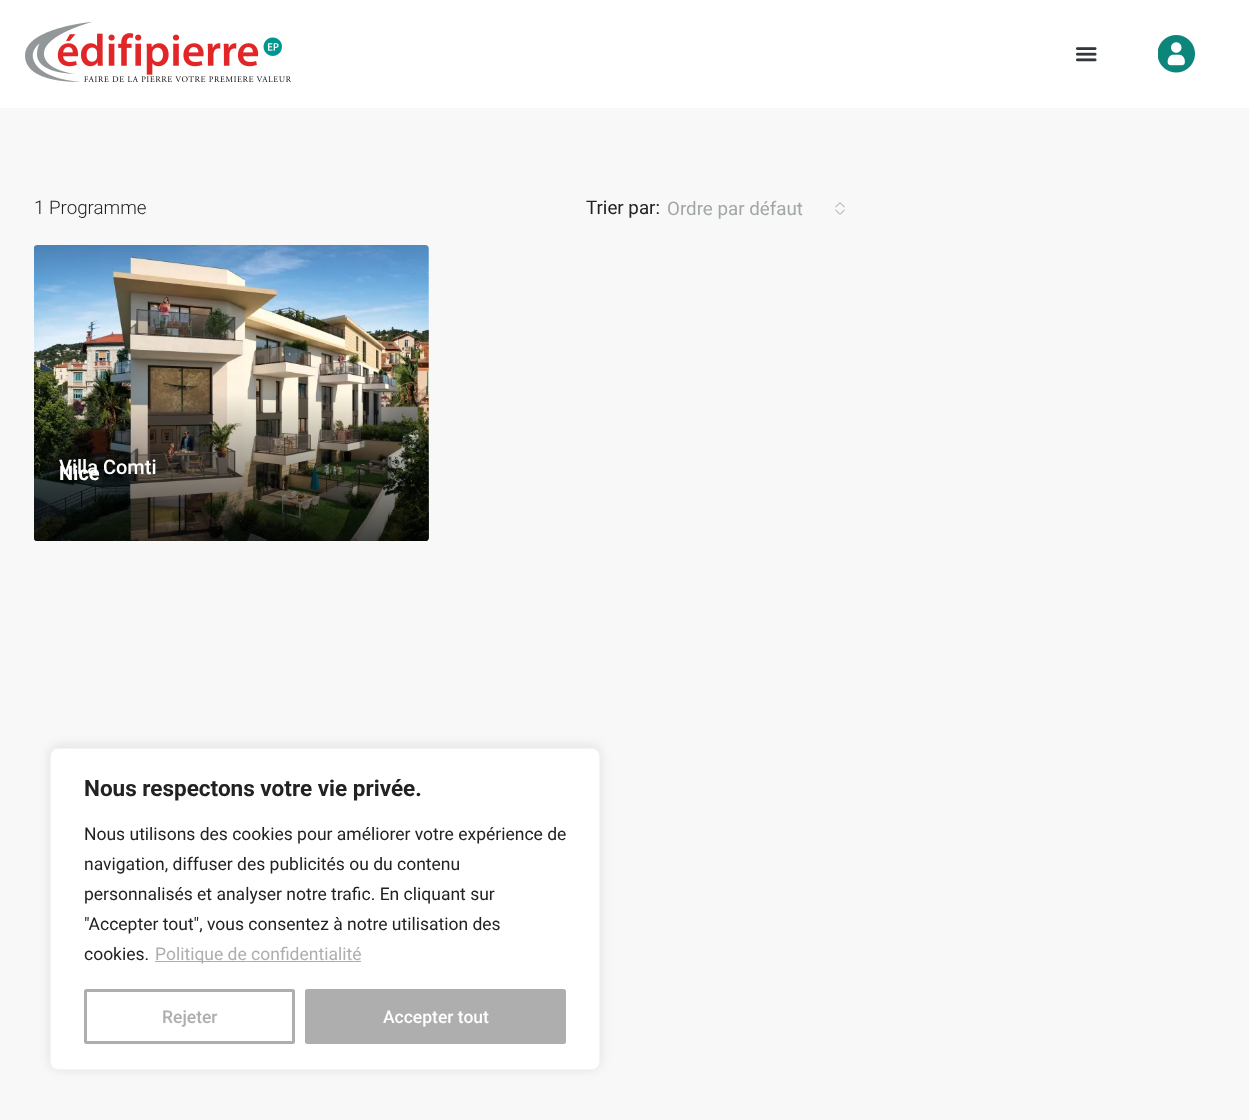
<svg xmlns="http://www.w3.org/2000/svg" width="1249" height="1120">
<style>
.a{font:300 18.75px Roboto;fill:#222}
.b{font:18.75px Roboto;fill:#222}
.c{font:18.75px Roboto;fill:#a1a7a8}
.d{font:500 20px Roboto;fill:#fff}
.e{font:bold 20px Roboto;fill:#fff}
.f{font:bold 22.5px Roboto;fill:#222}
.g{font:17.5px Roboto;fill:#222}
.h{font:17.5px Roboto;fill:#aeaeae}
.i{font:500 17.5px Roboto;fill:#aeaeae}
.j{font:500 17.5px Roboto;fill:#fff}
</style>
<defs>
<linearGradient id="g1" gradientUnits="userSpaceOnUse" x1="231" y1="245" x2="231" y2="541"><stop offset="0" stop-color="#000" stop-opacity="0"/><stop offset="0.5" stop-color="#000" stop-opacity="0"/><stop offset="1" stop-color="#000" stop-opacity="0.75"/></linearGradient>
</defs>
<rect width="100%" height="100%" fill="#f8f8f8"/>
<path fill="#fff" d="M0 0h1249v108H0z"/>
<image href="1.png" x="25" y="22" width="266" height="60"/>
<image href="2.png" x="1076" y="47" width="21" height="15"/>
<image href="3.png" x="1158" y="35" width="37" height="38"/>
<image href="4.png" x="835" y="202" width="10" height="13"/>
<image href="5.png" x="34" y="245" width="395" height="296"/>
<rect fill="url(#g1)" x="34" y="245" width="395" height="296" rx="4"/>
<rect fill="#acabab4d" filter="blur(6px)" x="50" y="746" width="550" height="323" rx="8"/>
<rect fill="#fff" stroke="#f4f4f4" x="50.5" y="748.5" width="549" height="321" rx="7.5"/>
<path fill="#aeaeae" d="M155 961h206v1H155z"/>
<rect fill="none" stroke="#aeaeae" stroke-width="3" x="85.5" y="990.5" width="208" height="52" rx="1"/>
<rect fill="#aeaeae" stroke="#aeaeae" stroke-width="3" x="306.5" y="990.5" width="258" height="52" rx="1"/>
<text class="a" x="34" y="214">1 Programme</text>
<text class="b" x="586" y="214">Trier par:</text>
<text class="c" x="667" y="215">Ordre par défaut</text>
<text class="d" x="59" y="474">Villa Comti</text>
<text class="e" x="59" y="480">Nice</text>
<text class="f" x="84" y="796">Nous respectons votre vie privée.</text>
<text class="g" x="84" y="840">Nous utilisons des cookies pour améliorer votre expérience de</text>
<text class="g" x="84" y="870">navigation, diffuser des publicités ou du contenu</text>
<text class="g" x="84" y="900">personnalisés et analyser notre trafic. En cliquant sur</text>
<text class="g" x="84" y="930">"Accepter tout", vous consentez à notre utilisation des</text>
<text class="g" x="84" y="960">cookies.</text>
<text class="h" x="155" y="960">Politique de confidentialité</text>
<text class="i" x="162" y="1023">Rejeter</text>
<text class="j" x="383" y="1023">Accepter tout</text>
</svg>
